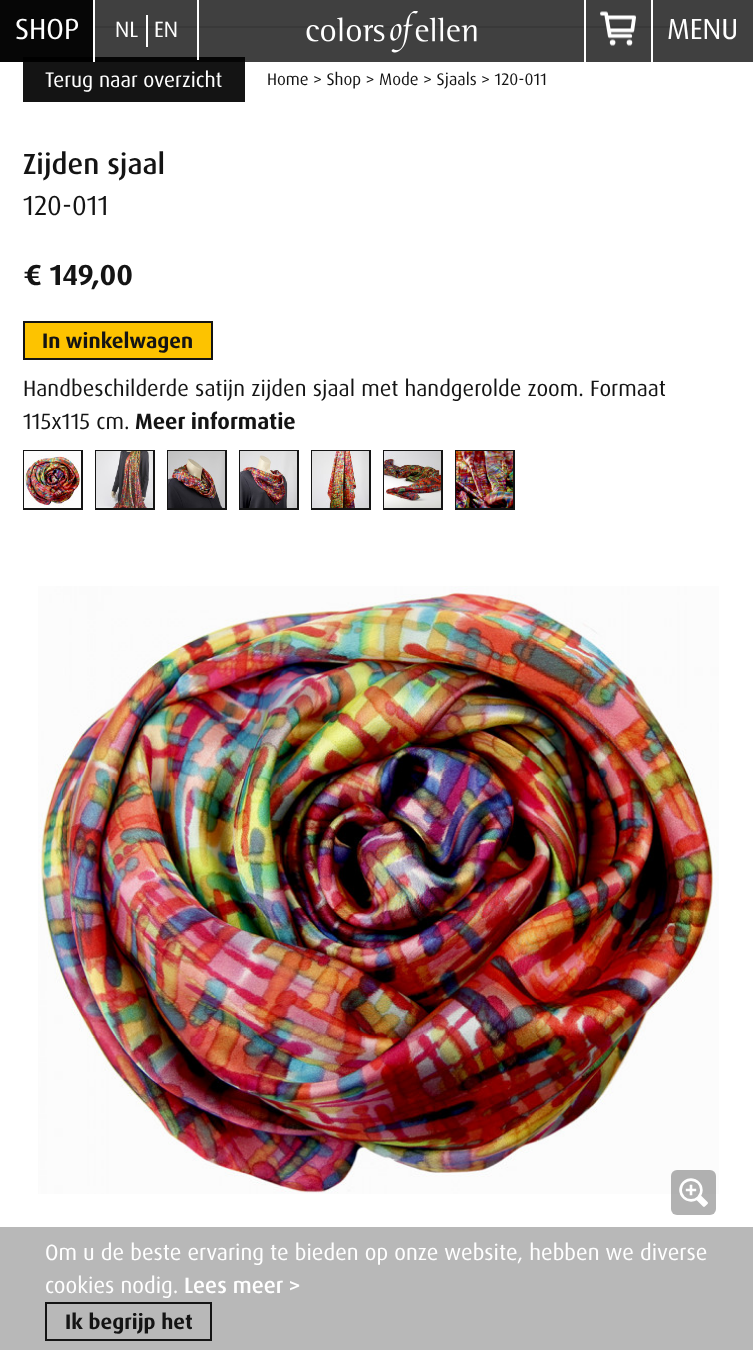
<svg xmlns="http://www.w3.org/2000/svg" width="753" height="1350">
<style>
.a{font:29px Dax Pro;fill:#fff}
.b{font:22px Dax Pro;fill:#fff}
.c{font:21px Dax Pro;fill:#fff}
.d{font:16.75px Dax Pro;fill:#141414}
.e{font:500 29px Dax Pro;fill:#141414}
.f{font:27.5px Dax Pro;fill:#141414}
.g{font:bold 29px Dax Pro;fill:#141414}
.h{font:bold 21px Dax Pro;fill:#141414}
.i{font:22.2px Dax Pro;fill:#141414}
.j{font:bold 22.2px Dax Pro;fill:#141414}
.k{font:22.2px Dax Pro;fill:#fff}
.l{font:500 22.2px Dax Pro;fill:#fff}
</style>
<rect width="100%" height="100%" fill="#fff"/>
<path fill="#404040" d="M95 0h658v62H95z"/>
<path fill="#060606" d="M0 0h93v62H0z"/>
<path fill="#393939" d="M95 26h636v2H95z"/>
<path fill="#050505" d="M95 57h150v5H95z"/>
<path fill="#fff" d="M197 0h2v60H197z"/>
<path fill="#fff" d="M146 15h2v32H146z"/>
<image href="1.png" x="306" y="11" width="171" height="42"/>
<path fill="#fff" d="M584 0h2v62H584z"/>
<image href="2.png" x="600" y="11" width="36" height="35"/>
<path fill="#fff" d="M651 0h2v62H651z"/>
<path fill="#141414" d="M23 62h222v40H23z"/>
<path fill="#000" d="M23 57h70v5H23z"/>
<path fill="#fdc300" stroke="#141414" stroke-width="2" d="M24 322h188v37H24z"/>
<path fill="none" stroke="#141414" stroke-width="2" d="M24 451h58v58H24z"/>
<image href="3.png" x="24" y="451" width="57" height="57"/>
<path fill="none" stroke="#141414" stroke-width="2" d="M96 451h58v58H96z"/>
<image href="4.png" x="96" y="451" width="57" height="57"/>
<path fill="none" stroke="#141414" stroke-width="2" d="M168 451h58v58H168z"/>
<image href="5.png" x="168" y="451" width="57" height="57"/>
<path fill="none" stroke="#141414" stroke-width="2" d="M240 451h58v58H240z"/>
<image href="6.png" x="240" y="451" width="57" height="57"/>
<path fill="none" stroke="#141414" stroke-width="2" d="M312 451h58v58H312z"/>
<image href="7.png" x="312" y="451" width="57" height="57"/>
<path fill="none" stroke="#141414" stroke-width="2" d="M384 451h58v58H384z"/>
<image href="8.png" x="384" y="451" width="57" height="57"/>
<path fill="none" stroke="#141414" stroke-width="2" d="M456 451h58v58H456z"/>
<image href="9.png" x="456" y="451" width="57" height="57"/>
<image href="10.png" x="38" y="586" width="681" height="608"/>
<rect fill="#0000004d" x="671" y="1170" width="45" height="45" rx="6"/>
<image href="11.png" x="679" y="1178" width="29" height="29"/>
<path fill="#b8b8b8" d="M0 1227h753v123H0z"/>
<path fill="none" stroke="#141414" stroke-width="2" d="M46 1303h165v37H46z"/>
<text class="a" x="15" y="39">SHOP</text>
<text class="b" x="115" y="37">NL</text>
<text class="b" x="154" y="37">EN</text>
<text class="a" x="667" y="39">MENU</text>
<text class="c" x="45" y="87">Terug naar overzicht</text>
<text class="d" x="267" y="85">Home &gt; Shop &gt; Mode &gt; Sjaals &gt; 120-011</text>
<text class="e" x="23" y="174">Zijden sjaal</text>
<text class="f" x="23" y="215">120-011</text>
<text class="g" x="23" y="285">€ 149,00</text>
<text class="h" x="42" y="348">In winkelwagen</text>
<text class="i" x="23" y="396">Handbeschilderde satijn zijden sjaal met handgerolde zoom. Formaat</text>
<text class="i" x="23" y="429">115x115 cm.</text>
<text class="j" x="135" y="429">Meer informatie</text>
<text class="k" x="45" y="1260">Om u de beste ervaring te bieden op onze website, hebben we diverse</text>
<text class="k" x="45" y="1293">cookies nodig.</text>
<text class="l" x="184" y="1293">Lees meer &gt;</text>
<text class="h" x="65" y="1329">Ik begrijp het</text>
</svg>
